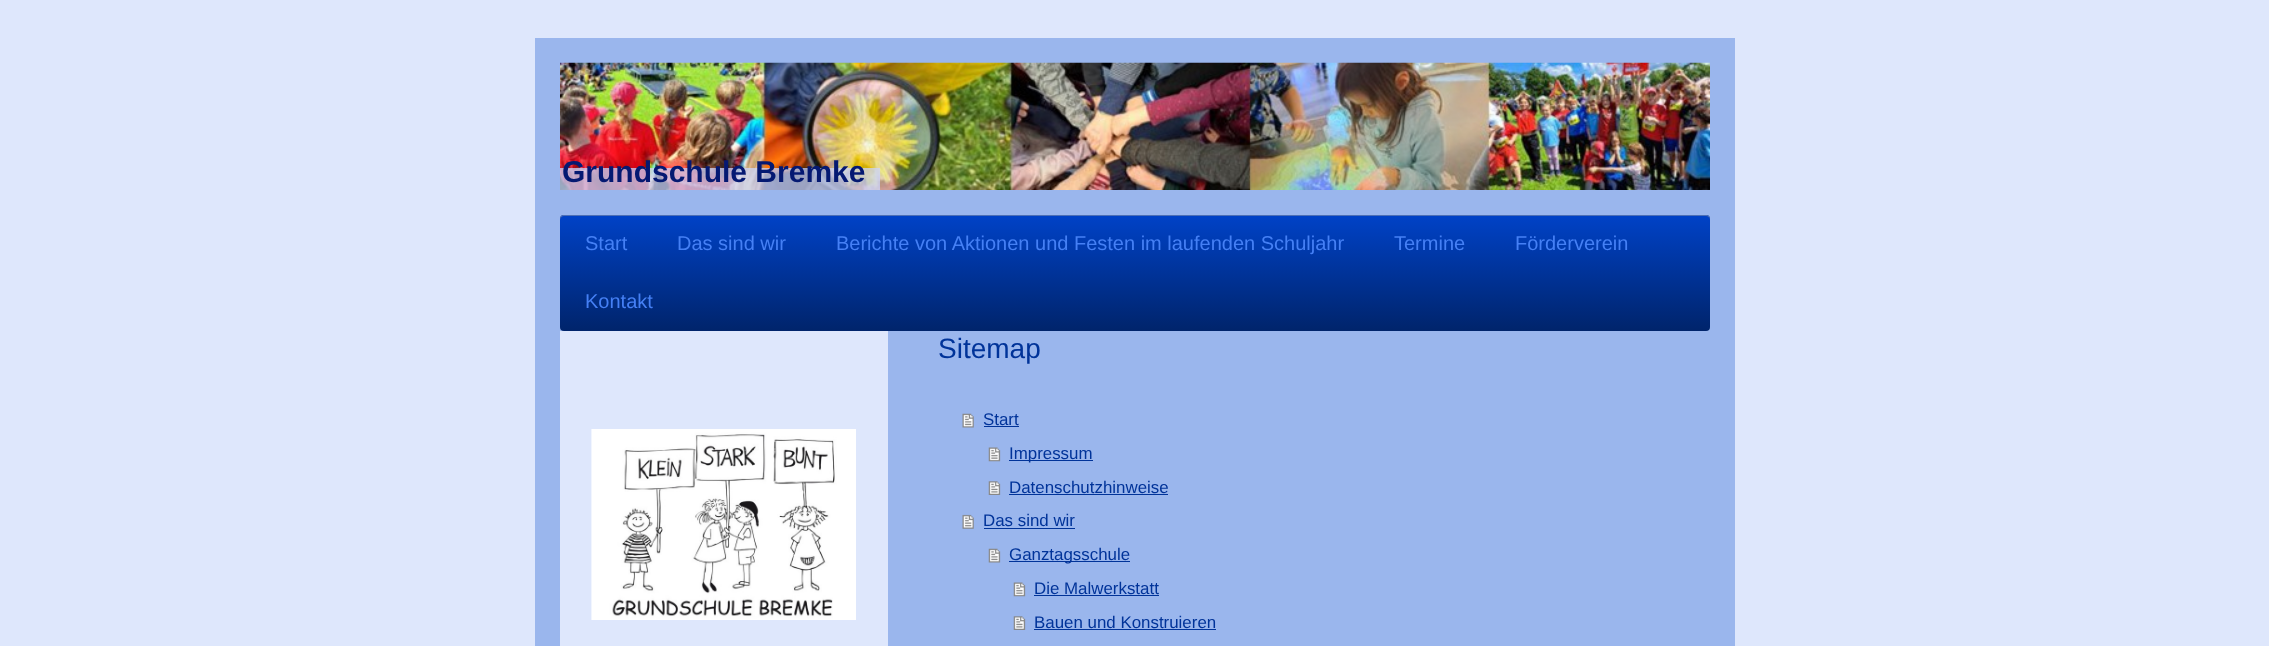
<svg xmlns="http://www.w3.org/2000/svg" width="2269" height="646">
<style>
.a{font:bold 30px Liberation Sans;fill:#051972}
.b{font:20px Liberation Sans;fill:#4580f5}
.c{font:28px Liberation Sans;fill:#039}
.d{font:16.9px Liberation Sans;fill:#039}
</style>
<defs>
<linearGradient id="g1" gradientUnits="userSpaceOnUse" x1="560" y1="215" x2="560" y2="331"><stop offset="0" stop-color="#0042c7"/><stop offset="1" stop-color="#00246b"/></linearGradient>
</defs>
<rect width="100%" height="100%" fill="#dee7fc"/>
<path fill="#9ab6ed" d="M535 38h1200v608H535z"/>
<image href="1.png" x="560" y="62" width="1150" height="128"/>
<path fill="#ccd5fcbf" d="M560 168h320v22H560z"/>
<rect fill="url(#g1)" x="560" y="215" width="1150" height="116" rx="4"/>
<path fill="#003194" d="M564 216h1142c2 0 4 2 4 4c0-3-1-5-4-5h-1142c-3 0-4 2-4 5c0-2 2-4 4-4z"/>
<path fill="#ffffff4d" d="M564 216h1142c2 0 4 2 4 4c0-3-1-5-4-5h-1142c-3 0-4 2-4 5c0-2 2-4 4-4z"/>
<path fill="#dee7fc" d="M560 331h328v315H560z"/>
<image href="2.png" x="962" y="413" width="12" height="15"/>
<path fill="#039" d="M984 426h35v1H984z"/>
<image href="3.png" x="988" y="447" width="13" height="15"/>
<path fill="#039" d="M1009 460h84v1H1009z"/>
<image href="4.png" x="988" y="481" width="13" height="14"/>
<path fill="#039" d="M1009 494h159v1H1009z"/>
<image href="5.png" x="962" y="514" width="12" height="15"/>
<path fill="#039" d="M984 528h91v1H984z"/>
<image href="6.png" x="988" y="548" width="13" height="15"/>
<path fill="#039" d="M1009 561h121v1H1009z"/>
<image href="7.png" x="1013" y="582" width="13" height="15"/>
<path fill="#039" d="M1034 595h125v1H1034z"/>
<image href="8.png" x="1013" y="616" width="13" height="14"/>
<path fill="#039" d="M1034 629h182v1H1034z"/>
<image href="9.png" x="591" y="429" width="265" height="191"/>
<text class="a" x="562" y="182">Grundschule Bremke</text>
<text class="b" x="585" y="250">Start</text>
<text class="b" x="677" y="250">Das sind wir</text>
<text class="b" x="836" y="250">Berichte von Aktionen und Festen im laufenden Schuljahr</text>
<text class="b" x="1394" y="250">Termine</text>
<text class="b" x="1515" y="250">Förderverein</text>
<text class="b" x="585" y="308">Kontakt</text>
<text class="c" x="938" y="358">Sitemap</text>
<text class="d" x="983" y="425">Start</text>
<text class="d" x="1009" y="459">Impressum</text>
<text class="d" x="1009" y="493">Datenschutzhinweise</text>
<text class="d" x="983" y="526">Das sind wir</text>
<text class="d" x="1009" y="560">Ganztagsschule</text>
<text class="d" x="1034" y="594">Die Malwerkstatt</text>
<text class="d" x="1034" y="628">Bauen und Konstruieren</text>
</svg>
